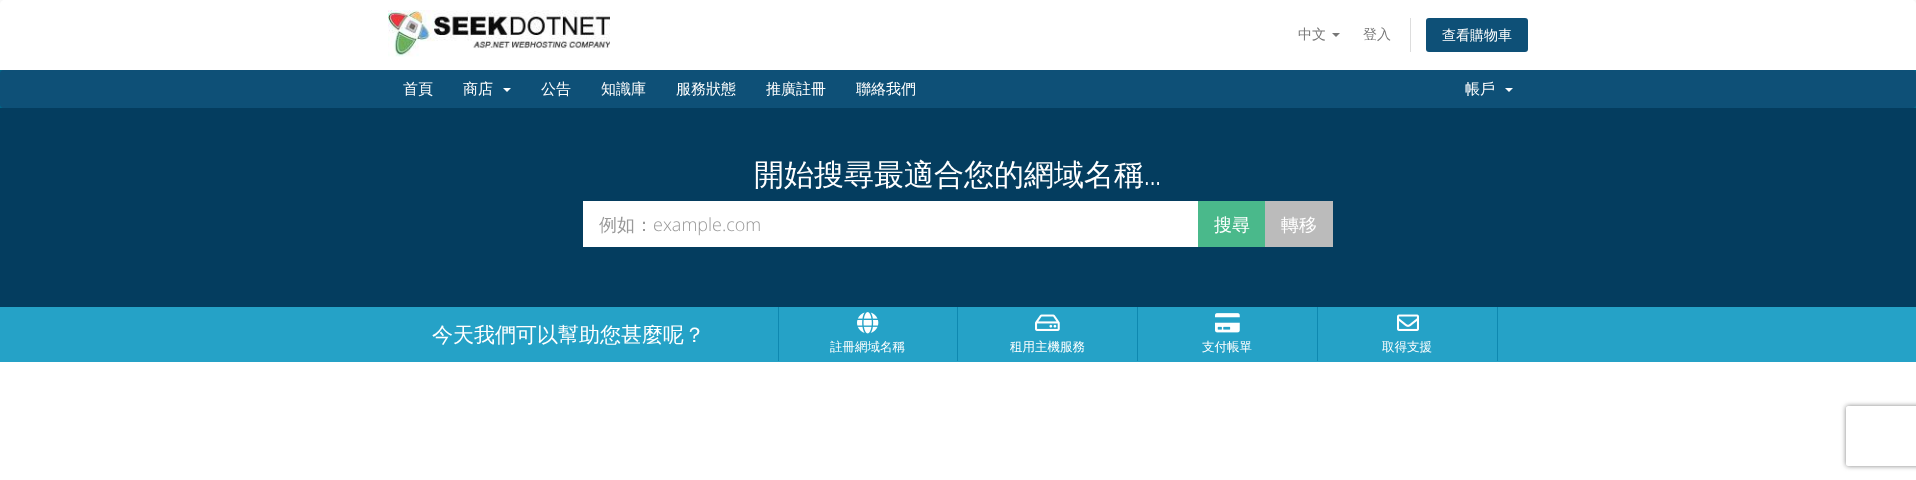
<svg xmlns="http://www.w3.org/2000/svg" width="1916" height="480">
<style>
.a{font:500 14px WenQuanYi Zen Hei;fill:#777}
.b{font:500 14px WenQuanYi Zen Hei;fill:#fff}
.c{font:500 15px WenQuanYi Zen Hei;fill:#fff}
.d{font:500 30px WenQuanYi Zen Hei;fill:#fff}
.e{font:30px Raleway;fill:#fff}
.f{font:500 18px WenQuanYi Zen Hei;fill:#999}
.g{font:300 18px Open Sans;fill:#999}
.h{font:500 18px WenQuanYi Zen Hei;fill:#fff}
.i{font:500 21px WenQuanYi Zen Hei;fill:#fff}
.j{font:500 12.5px WenQuanYi Zen Hei;fill:#fff}
</style>
<defs>
<clipPath id="clip1"><path d="M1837 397h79v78h-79zm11 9h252c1 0 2 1 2 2v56c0 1-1 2-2 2h-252c-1 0-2-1-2-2v-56c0-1 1-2 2-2z" clip-rule="evenodd"/></clipPath>
</defs>
<rect width="100%" height="100%" fill="#f8f8f8"/>
<path fill="#fff" d="M5 0h1906c3 0 5 2 5 5v65h-1916v-65c0-3 2-5 5-5z"/>
<image href="1.png" x="388" y="10" width="222" height="47"/>
<path fill="#777" d="M1332 33h8l-4 4z"/>
<path fill="#ddd" d="M1410 18h1v34H1410z"/>
<rect fill="#0e5077" x="1426" y="18" width="102" height="34" rx="3"/>
<path fill="#006687" d="M0 70h1916v38H0z"/>
<rect fill="#0e5077" y="70" width="1916" height="38" rx="4"/>
<path fill="#fff" d="M503 88h8l-4 4z"/>
<path fill="#fff" d="M1505 88h8l-4 4z"/>
<path fill="#043d5f" d="M0 108h1916v199H0z"/>
<path fill="#fff" d="M583 201h615v46H583z"/>
<path fill="#4ab98b" d="M1198 201h67v46H1198z"/>
<path fill="#bbb" d="M1265 201h68v46H1265z"/>
<path fill="#fff" d="M0 362h1916v118H0z"/>
<g clip-path="url(#clip1)">
<rect fill="#808080" filter="blur(2.5px)" x="1846" y="406" width="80" height="60" rx="2"/>
</g>
<path fill="#25a2c7" d="M0 307h1916v55H0z"/>
<path fill="#0e88b0" d="M957 307h1v54H957z"/>
<path fill="#0e88b0" d="M778 307h1v54H778z"/>
<image href="2.png" x="857" y="312" width="22" height="22"/>
<path fill="#0e88b0" d="M1137 307h1v54H1137z"/>
<image href="3.png" x="1035" y="314" width="25" height="17"/>
<path fill="#0e88b0" d="M1317 307h1v54H1317z"/>
<image href="4.png" x="1215" y="313" width="25" height="20"/>
<path fill="#0e88b0" d="M1497 307h1v54H1497z"/>
<image href="5.png" x="1397" y="314" width="22" height="17"/>
<text class="a" x="1298" y="39">中文</text>
<text class="a" x="1363" y="39">登入</text>
<text class="b" x="1442" y="40">查看購物車</text>
<text class="c" x="403" y="94">首頁</text>
<text class="c" x="463" y="94">商店</text>
<text class="c" x="541" y="94">公告</text>
<text class="c" x="601" y="94">知識庫</text>
<text class="c" x="676" y="94">服務狀態</text>
<text class="c" x="766" y="94">推廣註冊</text>
<text class="c" x="856" y="94">聯絡我們</text>
<text class="c" x="1465" y="94">帳戶</text>
<text class="d" x="754" y="185">開始搜尋最適合您的網域名稱</text>
<text class="e" x="1144" y="185">...</text>
<text class="f" x="599" y="231">例如：</text>
<text class="g" x="653" y="231">example.com</text>
<text class="h" x="1214" y="231">搜尋</text>
<text class="h" x="1281" y="231">轉移</text>
<text class="i" x="432" y="342">今天我們可以幫助您甚麼呢？</text>
<text class="j" x="830" y="351">註冊網域名稱</text>
<text class="j" x="1010" y="351">租用主機服務</text>
<text class="j" x="1202" y="351">支付帳單</text>
<text class="j" x="1382" y="351">取得支援</text>
</svg>
